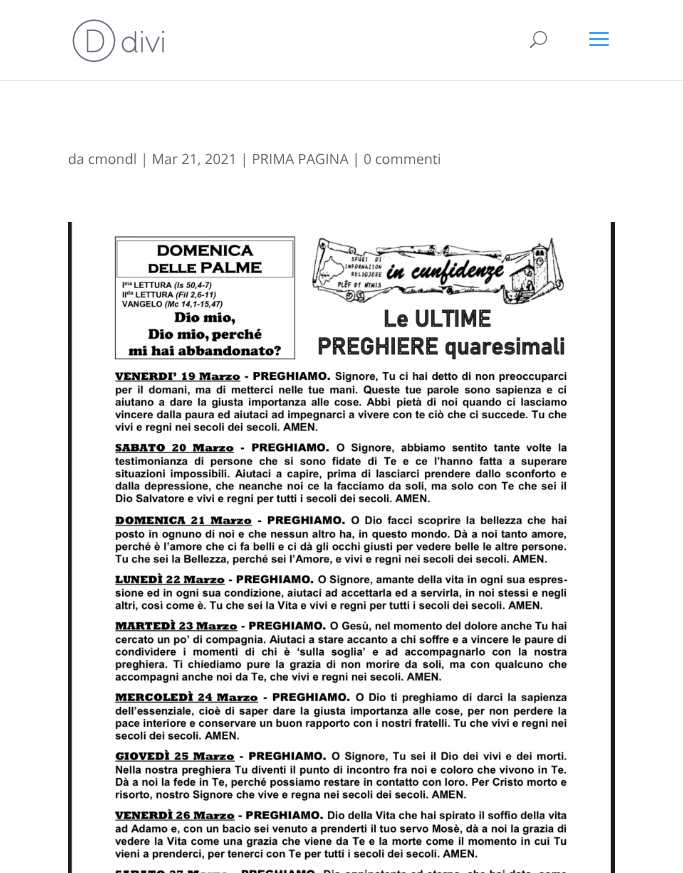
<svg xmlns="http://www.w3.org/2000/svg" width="683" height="873">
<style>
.a{font:14px Open Sans;fill:#666}
</style>
<rect width="100%" height="100%" fill="#fff"/>
<path fill="#e6e6e6" d="M0 80h683v1H0z"/>
<image href="1.png" x="72" y="19" width="93" height="43"/>
<image href="2.png" x="530" y="31" width="17" height="18"/>
<image href="3.png" x="589" y="32" width="20" height="14"/>
<image href="4.png" x="68" y="222" width="547" height="651"/>
<text class="a" x="68" y="164">da cmondl | Mar 21, 2021 | PRIMA PAGINA | 0 commenti</text>
</svg>
